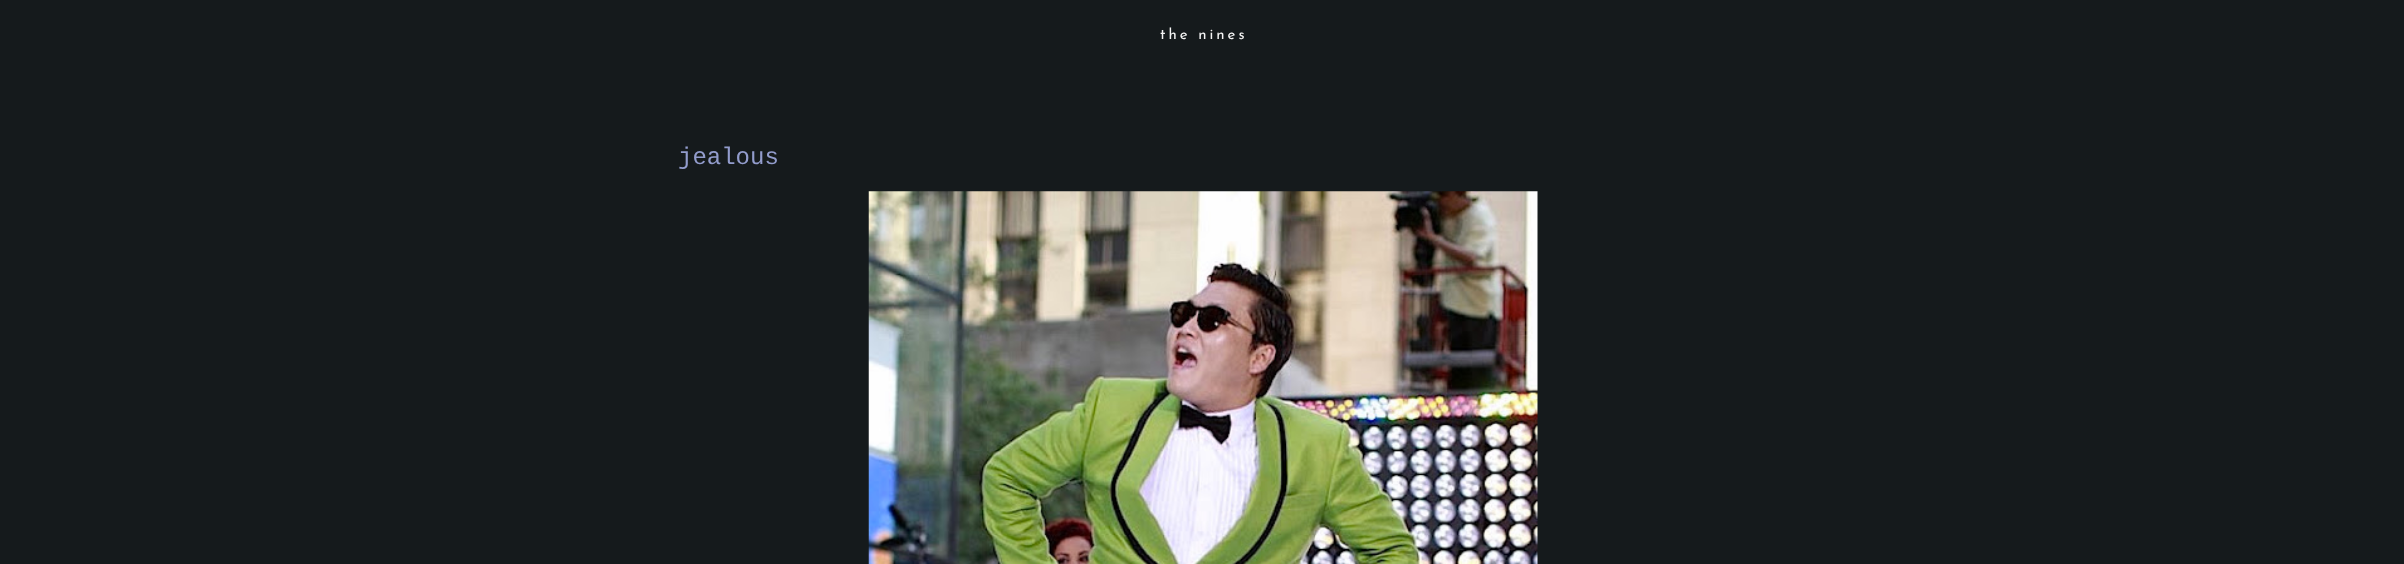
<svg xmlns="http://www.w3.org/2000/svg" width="2404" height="564">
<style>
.a{font:100 15px Josefin Sans;letter-spacing:3px;fill:#f5f5f5}
.b{font:24px Liberation Mono;fill:#929ccc}
</style>
<rect width="100%" height="100%" fill="#151a1c"/>
<image href="1.png" x="868" y="191" width="670" height="373"/>
<text class="a" x="1160" y="39">the nines</text>
<text class="b" x="678" y="164">jealous</text>
</svg>
